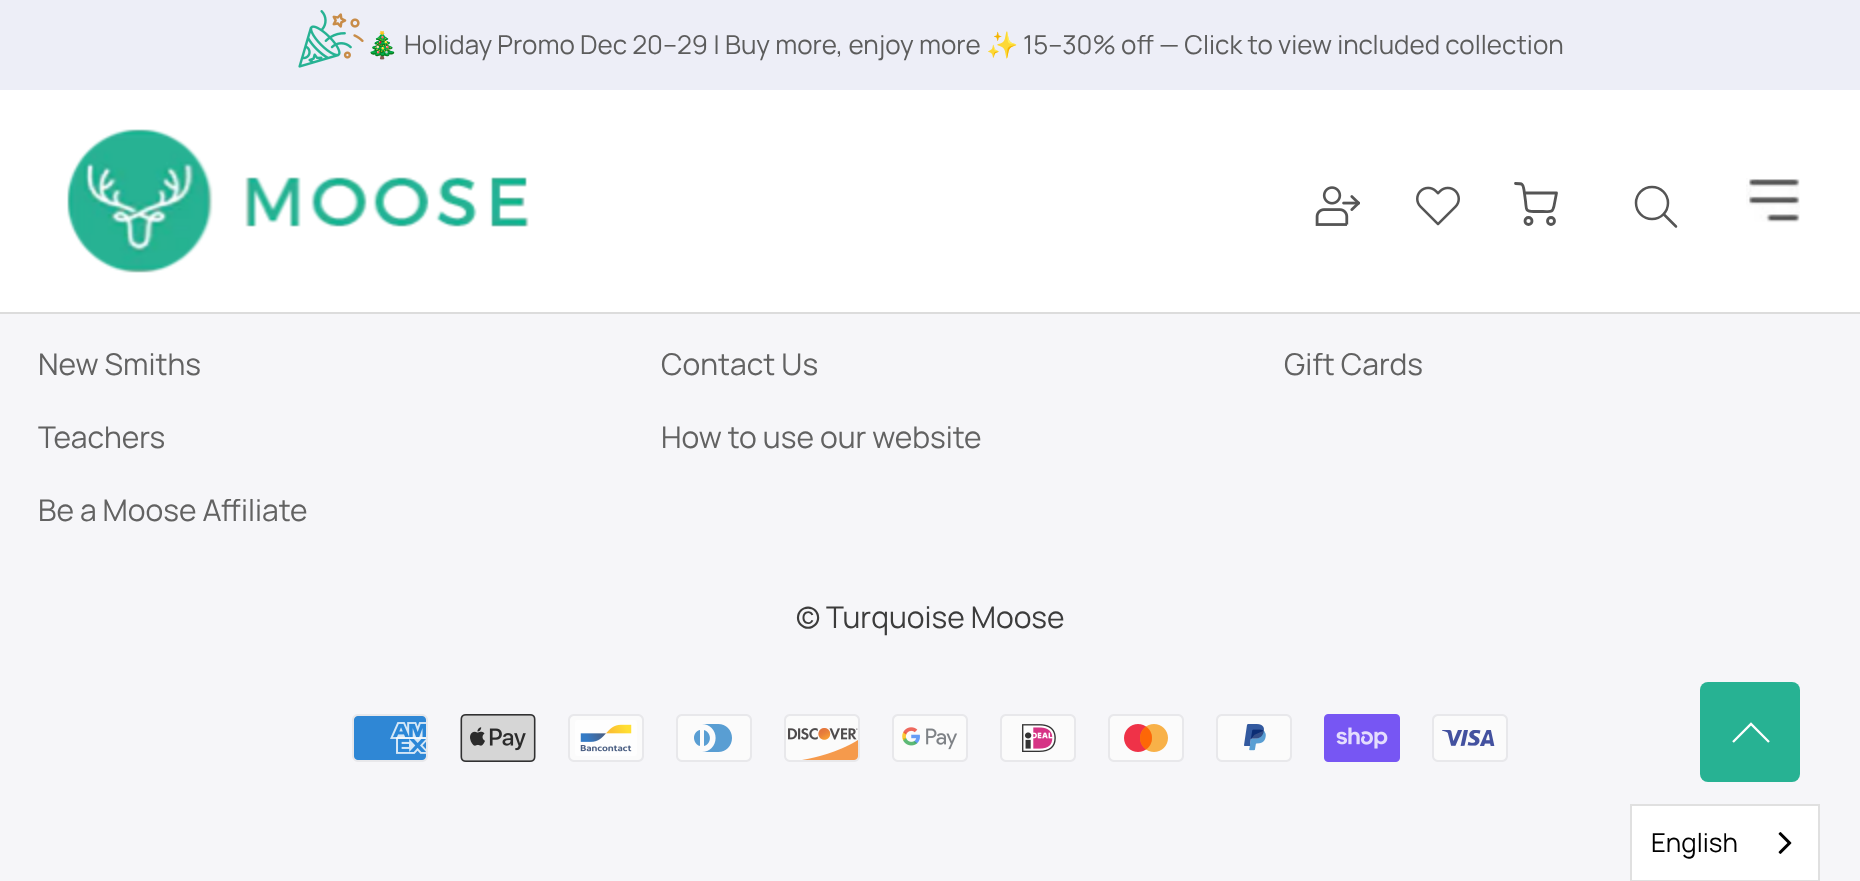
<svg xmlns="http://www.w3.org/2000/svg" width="1860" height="881">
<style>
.a{font:26px Noto Color Emoji;fill:#5c5c5c}
.b{font:26px Manrope;fill:#5c5c5c}
.c{font:30px Manrope;fill:#626262}
.d{font:30px Manrope;fill:#3c3c3c}
.e{font:26px Manrope;fill:#000}
</style>
<rect width="100%" height="100%" fill="#f6f6f9"/>
<path fill="#edeef7" d="M0 0h1860v90H0z"/>
<image href="1.png" x="298" y="10" width="66" height="58"/>
<path fill="#fff" d="M0 90h1860v222H0z"/>
<path fill="#dcdcdc" d="M0 312h1860v2H0z"/>
<image href="2.png" x="67" y="129" width="462" height="144"/>
<image href="3.png" x="1315" y="186" width="45" height="40"/>
<image href="4.png" x="1416" y="186" width="44" height="40"/>
<path fill="none" stroke="#555" stroke-width="2.8" stroke-linecap="round" stroke-linejoin="round" d="M1524.5 193h32l-2.5 13c-1.5 7-3.5 5.5-11 5.5h-9.5c-8.5 0-7-2.5-8-10.5l-1.5-11c-1-6.5-1.5-6.5-8.5-6.5"/>
<circle fill="none" stroke="#555" stroke-width="2.8" cx="1528.5" cy="221" r="3.5"/>
<circle fill="none" stroke="#555" stroke-width="2.8" cx="1551" cy="221" r="3.5"/>
<circle fill="none" stroke="#555" stroke-width="2.5" cx="1652" cy="203" r="16"/>
<path fill="none" stroke="#555" stroke-width="2.5" stroke-linecap="round" stroke-linejoin="round" d="M1676 226.5l-12-12"/>
<image href="5.png" x="1746" y="178" width="54" height="45"/>
<image href="6.png" x="352" y="714" width="76" height="48"/>
<image href="7.png" x="460" y="714" width="76" height="48"/>
<image href="8.png" x="568" y="714" width="76" height="48"/>
<image href="9.png" x="676" y="714" width="76" height="48"/>
<image href="10.png" x="784" y="714" width="76" height="48"/>
<image href="11.png" x="892" y="714" width="76" height="48"/>
<image href="12.png" x="1000" y="714" width="76" height="48"/>
<image href="13.png" x="1108" y="714" width="76" height="48"/>
<image href="14.png" x="1216" y="714" width="76" height="48"/>
<image href="15.png" x="1324" y="714" width="76" height="48"/>
<image href="16.png" x="1432" y="714" width="76" height="48"/>
<rect fill="#27b293" x="1700" y="682" width="100" height="100" rx="8"/>
<path fill="none" stroke="#fff" stroke-width="2.3" d="M1769 742l-18-18l-18 18"/>
<path fill="#fff" stroke="#e0e0e0" stroke-width="2" d="M1631 805h188v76H1631z"/>
<image href="17.png" x="1778" y="832" width="14" height="22"/>
<text class="a" x="366" y="54">🎄</text>
<text class="b" x="404" y="54">Holiday Promo Dec 20–29 | Buy more, enjoy more</text>
<text class="a" x="986" y="54">✨</text>
<text class="b" x="1023" y="54">15–30% off — Click to view included collection</text>
<text class="c" x="38" y="375">New Smiths</text>
<text class="c" x="38" y="448">Teachers</text>
<text class="c" x="38" y="521">Be a Moose Affiliate</text>
<text class="c" x="661" y="375">Contact Us</text>
<text class="c" x="661" y="448">How to use our website</text>
<text class="c" x="1284" y="375">Gift Cards</text>
<text class="d" x="796" y="628">© Turquoise Moose</text>
<text class="e" x="1651" y="852">English</text>
</svg>
